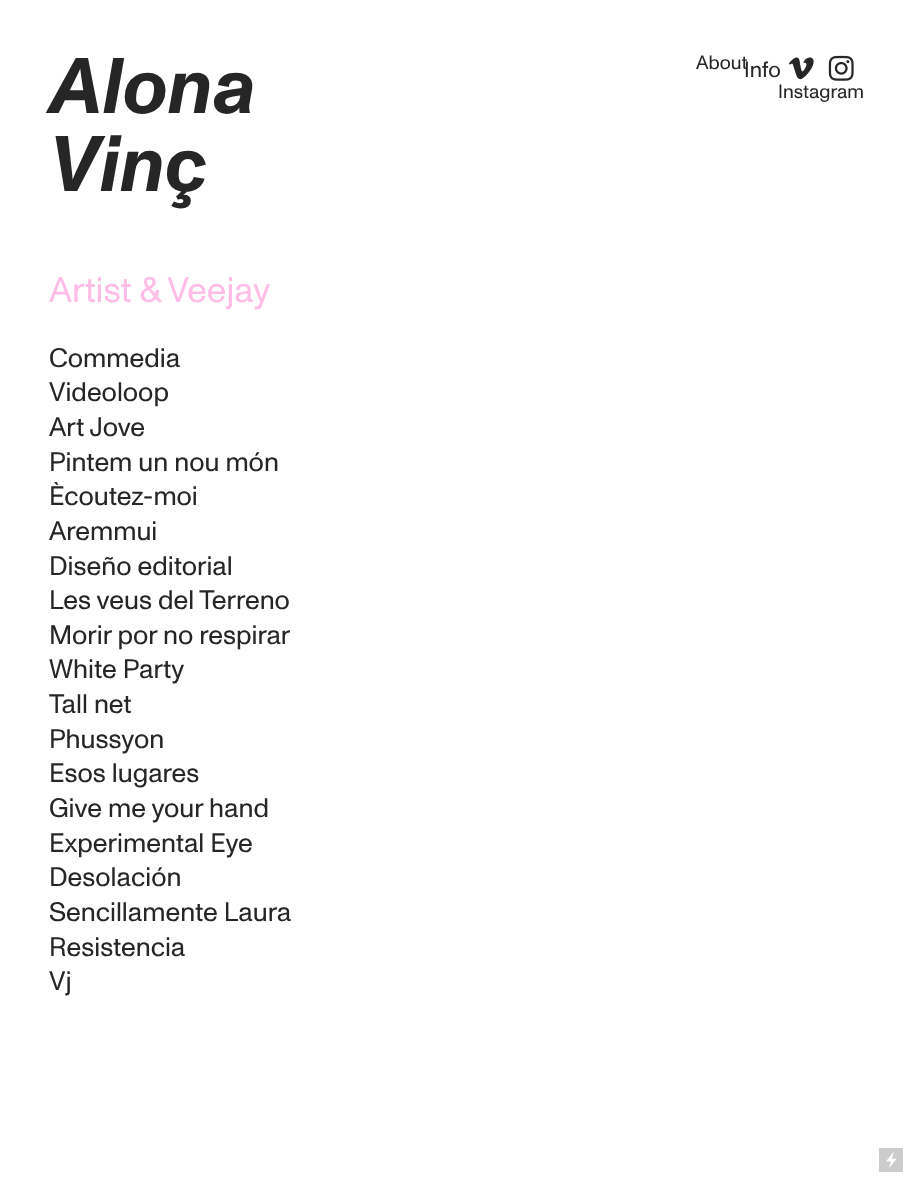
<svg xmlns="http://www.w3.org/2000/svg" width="913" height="1182">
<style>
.a{font:19.25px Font;fill:#262626}
.b{font:italic bold 78.5px Font;fill:#262626}
.c{font:35.5px Font;fill:#ffbde8}
.d{font:26.75px Font;fill:#262626}
.e{font:22px Font;fill:#262626}
</style>
<rect width="100%" height="100%" fill="#fff"/>
<image href="1.png" x="788" y="57" width="26" height="23"/>
<image href="2.png" x="828" y="55" width="26" height="26"/>
<path fill="#ccc" d="M879 1148h24v24H879z"/>
<image href="3.png" x="886" y="1152" width="11" height="16"/>
<text class="a" x="696" y="69">About</text>
<text class="a" x="778" y="98">Instagram</text>
<text class="b" x="49" y="113">Alona</text>
<text class="b" x="49" y="191">Vinç</text>
<text class="c" x="49" y="302">Artist &amp; Veejay</text>
<text class="d" x="49" y="367">Commedia</text>
<text class="d" x="49" y="401">Videoloop</text>
<text class="d" x="49" y="436">Art Jove</text>
<text class="d" x="49" y="471">Pintem un nou món</text>
<text class="d" x="49" y="505">Ècoutez-moi</text>
<text class="d" x="49" y="540">Aremmui</text>
<text class="d" x="49" y="575">Diseño editorial</text>
<text class="d" x="49" y="609">Les veus del Terreno</text>
<text class="d" x="49" y="644">Morir por no respirar</text>
<text class="d" x="49" y="678">White Party</text>
<text class="d" x="49" y="713">Tall net</text>
<text class="d" x="49" y="748">Phussyon</text>
<text class="d" x="49" y="782">Esos lugares</text>
<text class="d" x="49" y="817">Give me your hand</text>
<text class="d" x="49" y="852">Experimental Eye</text>
<text class="d" x="49" y="886">Desolación</text>
<text class="d" x="49" y="921">Sencillamente Laura</text>
<text class="d" x="49" y="956">Resistencia</text>
<text class="d" x="49" y="990">Vj</text>
<text class="e" x="744" y="77">Info</text>
</svg>
